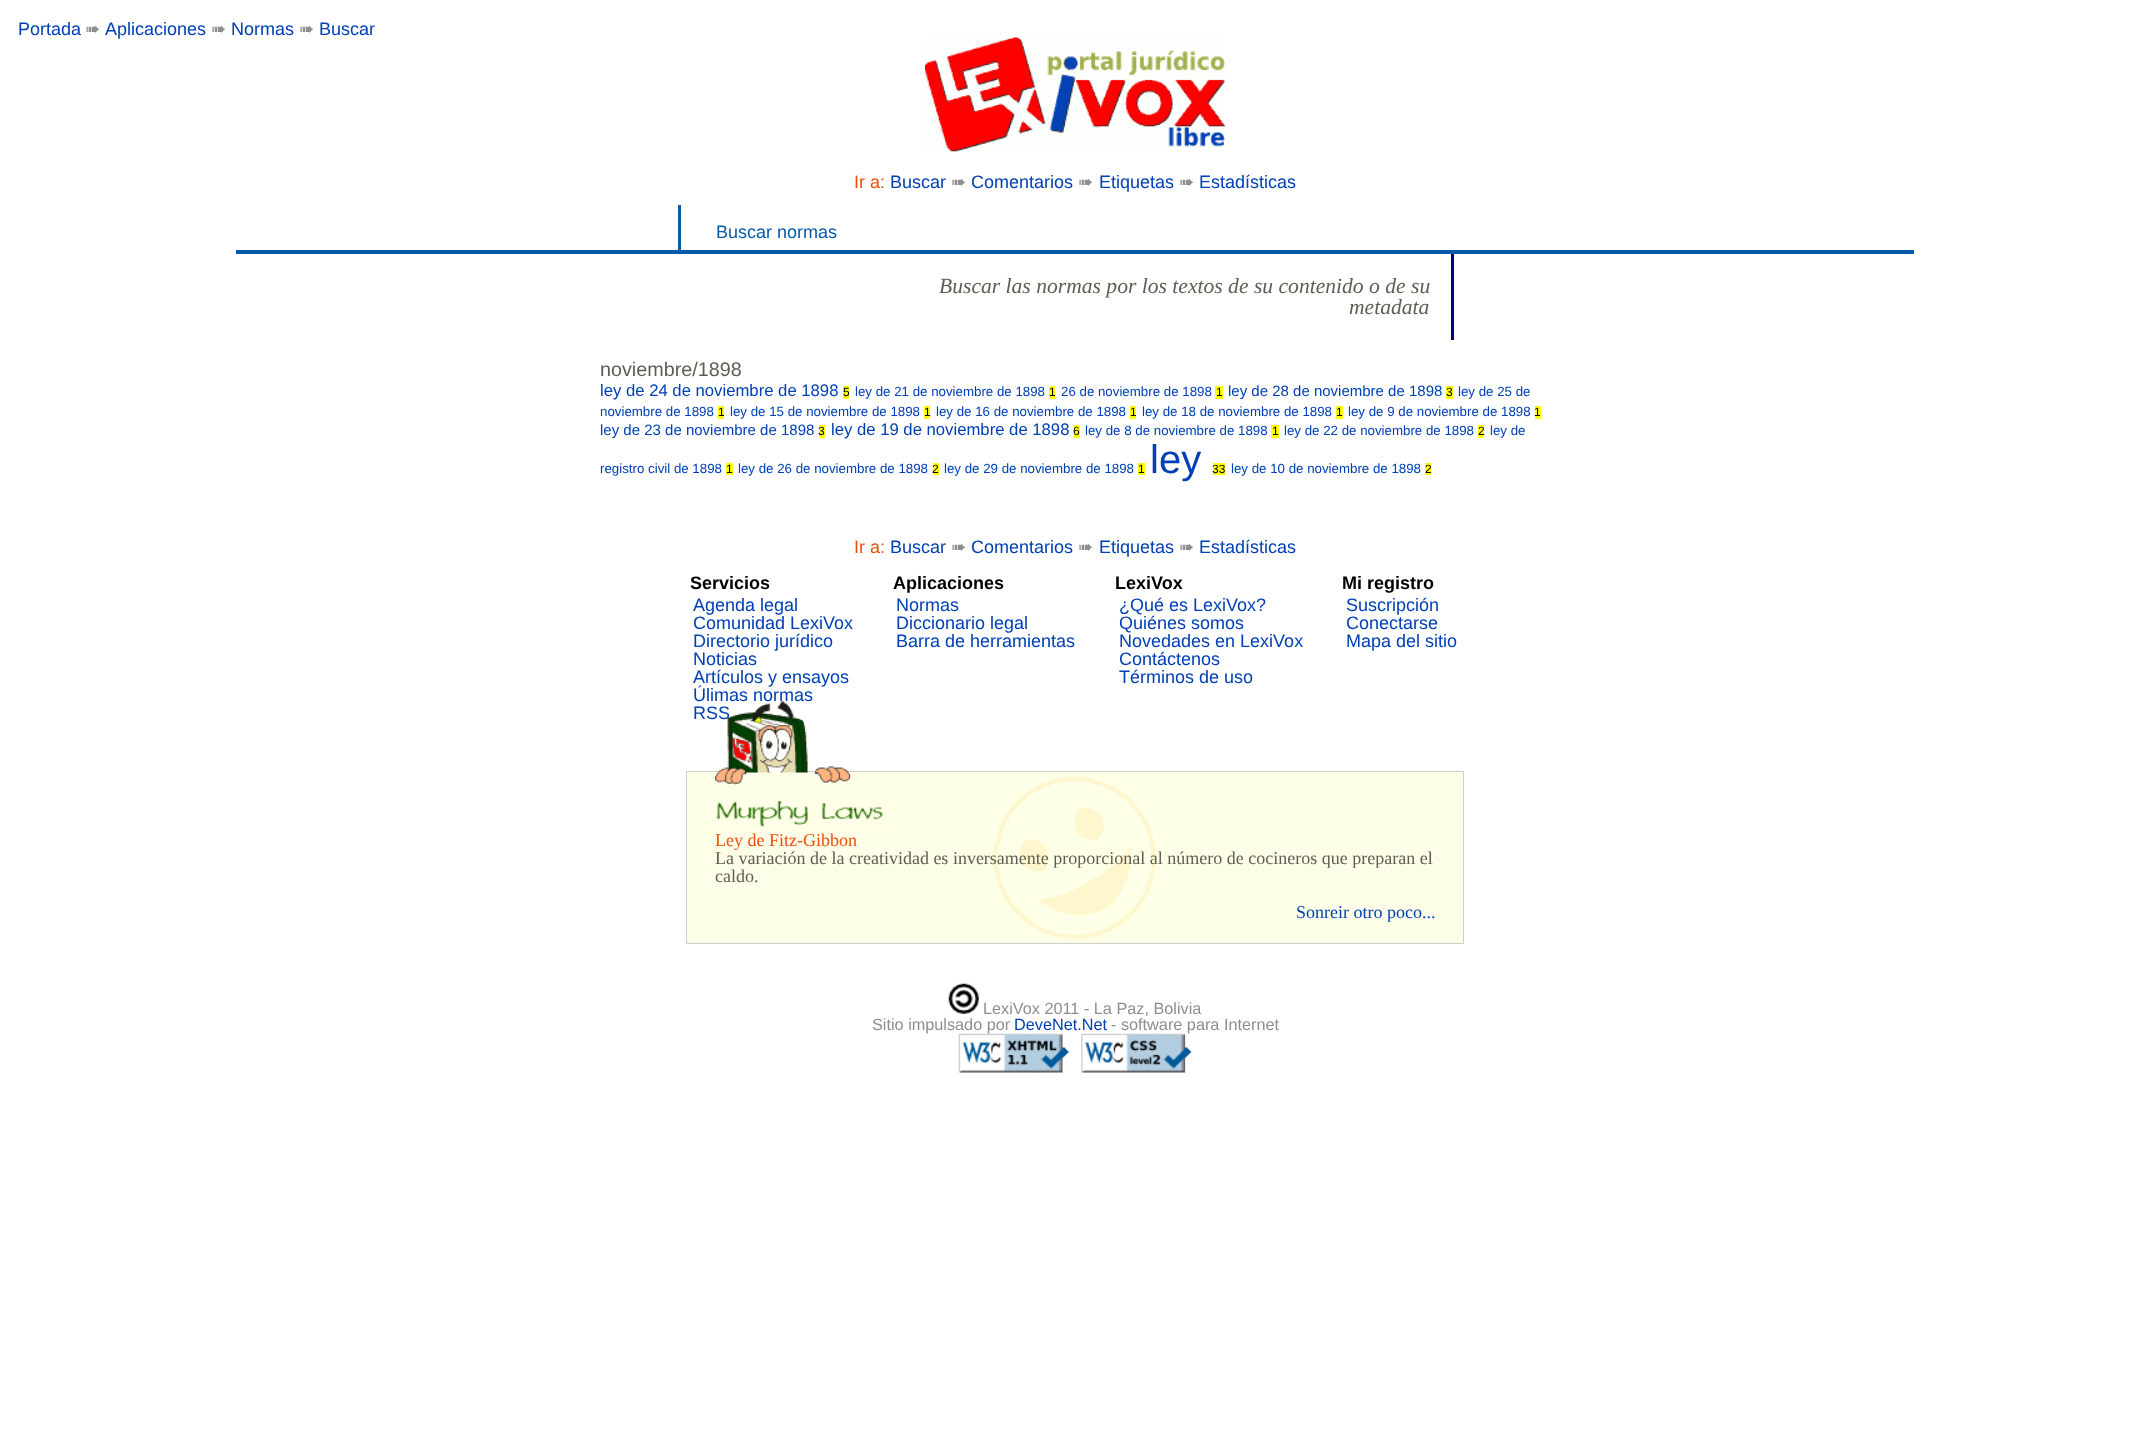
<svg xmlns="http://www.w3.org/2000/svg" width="2150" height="1446">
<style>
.a{font:18px Liberation Sans;fill:#0040b6}
.b{font:18px DejaVu Sans;fill:#8e8e8e}
.c{font:18px Liberation Sans;fill:#ef4d0e}
.d{font:18px Liberation Sans;fill:#065aa8}
.e{font:italic 21.6px Liberation Serif;fill:#5f5d53}
.f{font:19.75px Liberation Sans;fill:#5f5d53}
.g{font:16.7px Liberation Sans;fill:#0040b6}
.h{font:12px Liberation Sans;fill:#000}
.i{font:13.3px Liberation Sans;fill:#0040b6}
.j{font:15px Liberation Sans;fill:#0040b6}
.k{font:40px Liberation Sans;fill:#0040b6}
.l{font:bold 18px Liberation Sans;fill:#000}
.m{font:18px Liberation Serif;fill:#ef4d0e}
.n{font:18px Liberation Serif;fill:#5f5d53}
.o{font:18px Liberation Serif;fill:#0040b6}
.p{font:16.25px Liberation Sans;fill:#8e8e8e}
.q{font:16.25px Liberation Sans;fill:#0040b6}
</style>
<rect width="100%" height="100%" fill="#fff"/>
<image href="1.png" x="925" y="37" width="300" height="115"/>
<path fill="#065aa8" d="M236 250h1678v4H236z"/>
<path fill="#065aa8" d="M678 205h3v45H678z"/>
<path fill="#000080" d="M1451 254h3v86H1451z"/>
<path fill="#ff0" d="M843 386h6v13H843z"/>
<path fill="#ff0" d="M1049 386h6v13H1049z"/>
<path fill="#ff0" d="M1215 386h8v13H1215z"/>
<path fill="#ff0" d="M1446 386h7v13H1446z"/>
<path fill="#ff0" d="M718 406h6v13H718z"/>
<path fill="#ff0" d="M924 406h6v13H924z"/>
<path fill="#ff0" d="M1130 406h6v13H1130z"/>
<path fill="#ff0" d="M1336 406h7v13H1336z"/>
<path fill="#ff0" d="M1535 406h6v13H1535z"/>
<path fill="#ff0" d="M819 425h6v13H819z"/>
<path fill="#ff0" d="M1074 425h6v13H1074z"/>
<path fill="#ff0" d="M1271 425h8v13H1271z"/>
<path fill="#ff0" d="M1478 425h6v13H1478z"/>
<path fill="#ff0" d="M726 463h7v12H726z"/>
<path fill="#ff0" d="M933 463h6v12H933z"/>
<path fill="#ff0" d="M1138 463h7v12H1138z"/>
<path fill="#ff0" d="M1213 463h12v12H1213z"/>
<path fill="#ff0" d="M1425 463h6v12H1425z"/>
<path fill="#fdfee7" d="M687 772h776v171H687z"/>
<image href="2.png" x="993" y="776" width="164" height="163"/>
<path fill="none" stroke="#cdcec7" d="M686.5 771.5h777v172H686.5z"/>
<image href="4.png" x="716" y="800" width="168" height="28"/>
<image href="5.png" x="948" y="983" width="31" height="31"/>
<text class="a" x="18" y="35">Portada</text>
<text class="b" x="85" y="35">➠</text>
<text class="a" x="105" y="35">Aplicaciones</text>
<text class="b" x="211" y="35">➠</text>
<text class="a" x="231" y="35">Normas</text>
<text class="b" x="299" y="35">➠</text>
<text class="a" x="319" y="35">Buscar</text>
<text class="c" x="854" y="188">Ir a:</text>
<text class="a" x="890" y="188">Buscar</text>
<text class="b" x="951" y="188">➠</text>
<text class="a" x="971" y="188">Comentarios</text>
<text class="b" x="1078" y="188">➠</text>
<text class="a" x="1099" y="188">Etiquetas</text>
<text class="b" x="1179" y="188">➠</text>
<text class="a" x="1199" y="188">Estadísticas</text>
<text class="d" x="716" y="238">Buscar normas</text>
<text class="e" x="939" y="293">Buscar las normas por los textos de su contenido o de su</text>
<text class="e" x="1349" y="314">metadata</text>
<text class="f" x="600" y="376">noviembre/1898</text>
<text class="g" x="600" y="396">ley de 24 de noviembre de 1898</text>
<text class="h" x="843" y="396">5</text>
<text class="i" x="855" y="396">ley de 21 de noviembre de 1898</text>
<text class="h" x="1049" y="396">1</text>
<text class="i" x="1061" y="396">26 de noviembre de 1898</text>
<text class="h" x="1216" y="396">1</text>
<text class="j" x="1228" y="396">ley de 28 de noviembre de 1898</text>
<text class="h" x="1446" y="396">3</text>
<text class="i" x="1458" y="396">ley de 25 de</text>
<text class="i" x="600" y="416">noviembre de 1898</text>
<text class="h" x="718" y="416">1</text>
<text class="i" x="730" y="416">ley de 15 de noviembre de 1898</text>
<text class="h" x="924" y="416">1</text>
<text class="i" x="936" y="416">ley de 16 de noviembre de 1898</text>
<text class="h" x="1130" y="416">1</text>
<text class="i" x="1142" y="416">ley de 18 de noviembre de 1898</text>
<text class="h" x="1336" y="416">1</text>
<text class="i" x="1348" y="416">ley de 9 de noviembre de 1898</text>
<text class="h" x="1534" y="416">1</text>
<text class="j" x="600" y="435">ley de 23 de noviembre de 1898</text>
<text class="h" x="818" y="435">3</text>
<text class="g" x="831" y="435">ley de 19 de noviembre de 1898</text>
<text class="h" x="1073" y="435">6</text>
<text class="i" x="1085" y="435">ley de 8 de noviembre de 1898</text>
<text class="h" x="1272" y="435">1</text>
<text class="i" x="1284" y="435">ley de 22 de noviembre de 1898</text>
<text class="h" x="1478" y="435">2</text>
<text class="i" x="1490" y="435">ley de</text>
<text class="i" x="600" y="473">registro civil de 1898</text>
<text class="h" x="726" y="473">1</text>
<text class="i" x="738" y="473">ley de 26 de noviembre de 1898</text>
<text class="h" x="932" y="473">2</text>
<text class="i" x="944" y="473">ley de 29 de noviembre de 1898</text>
<text class="h" x="1138" y="473">1</text>
<text class="k" x="1150" y="473">ley</text>
<text class="h" x="1212" y="473">33</text>
<text class="i" x="1231" y="473">ley de 10 de noviembre de 1898</text>
<text class="h" x="1425" y="473">2</text>
<text class="c" x="854" y="553">Ir a:</text>
<text class="a" x="890" y="553">Buscar</text>
<text class="b" x="951" y="553">➠</text>
<text class="a" x="971" y="553">Comentarios</text>
<text class="b" x="1078" y="553">➠</text>
<text class="a" x="1099" y="553">Etiquetas</text>
<text class="b" x="1179" y="553">➠</text>
<text class="a" x="1199" y="553">Estadísticas</text>
<text class="l" x="690" y="589">Servicios</text>
<text class="a" x="693" y="611">Agenda legal</text>
<text class="a" x="693" y="629">Comunidad LexiVox</text>
<text class="a" x="693" y="647">Directorio jurídico</text>
<text class="a" x="693" y="665">Noticias</text>
<text class="a" x="693" y="683">Artículos y ensayos</text>
<text class="a" x="693" y="701">Úlimas normas</text>
<text class="a" x="693" y="719">RSS</text>
<text class="l" x="893" y="589">Aplicaciones</text>
<text class="a" x="896" y="611">Normas</text>
<text class="a" x="896" y="629">Diccionario legal</text>
<text class="a" x="896" y="647">Barra de herramientas</text>
<text class="l" x="1115" y="589">LexiVox</text>
<text class="a" x="1119" y="611">¿Qué es LexiVox?</text>
<text class="a" x="1119" y="629">Quiénes somos</text>
<text class="a" x="1119" y="647">Novedades en LexiVox</text>
<text class="a" x="1119" y="665">Contáctenos</text>
<text class="a" x="1119" y="683">Términos de uso</text>
<text class="l" x="1342" y="589">Mi registro</text>
<text class="a" x="1346" y="611">Suscripción</text>
<text class="a" x="1346" y="629">Conectarse</text>
<text class="a" x="1346" y="647">Mapa del sitio</text>
<image href="3.png" x="715" y="701" width="136" height="84"/>
<text class="m" x="715" y="846">Ley de Fitz-Gibbon</text>
<text class="n" x="715" y="864">La variación de la creatividad es inversamente proporcional al número de cocineros que preparan el</text>
<text class="n" x="715" y="882">caldo.</text>
<text class="o" x="1296" y="918">Sonreir otro poco...</text>
<text class="p" x="983" y="1014">LexiVox 2011 - La Paz, Bolivia</text>
<text class="p" x="872" y="1030">Sitio impulsado por</text>
<text class="q" x="1014" y="1030">DeveNet.Net</text>
<text class="p" x="1111" y="1030">- software para Internet</text>
<image href="6.png" x="958" y="1033" width="111" height="40"/>
<image href="7.png" x="1081" y="1033" width="111" height="40"/>
</svg>
